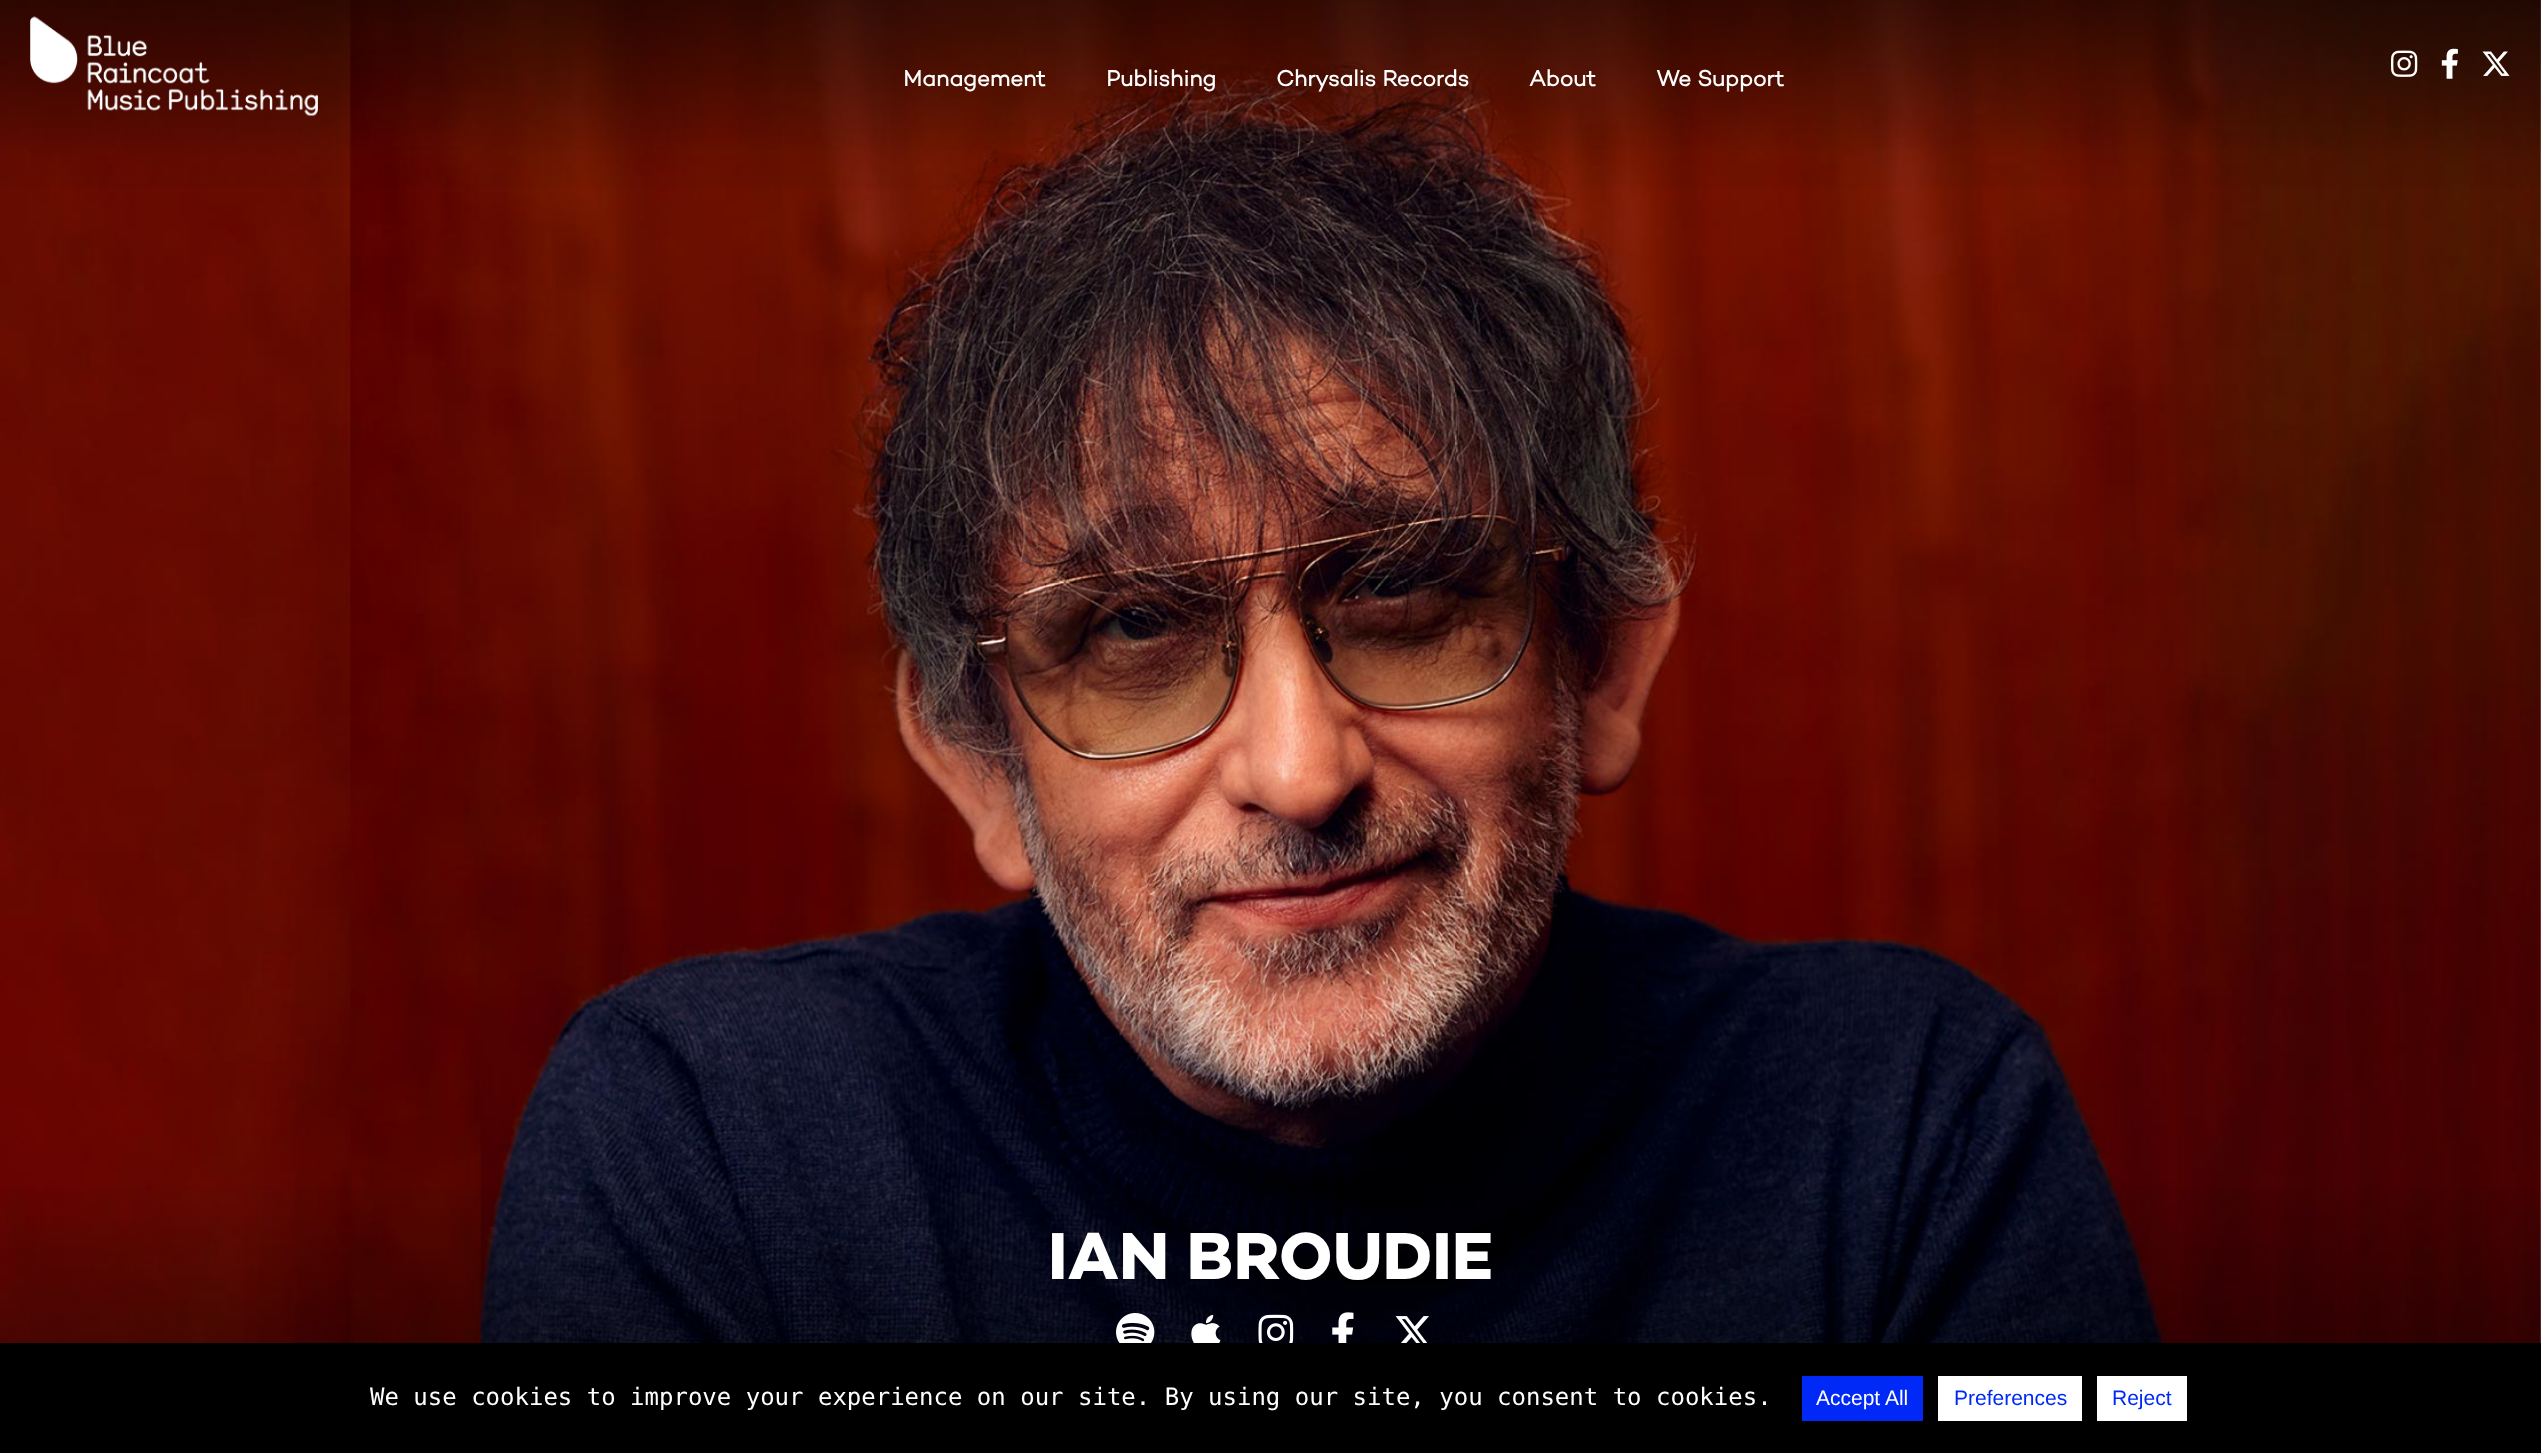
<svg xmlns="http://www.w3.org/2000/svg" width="2541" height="1453">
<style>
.a{font:bold 22.5px 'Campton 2';fill:#fff}
.b{font:bold 67.5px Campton;fill:#fff}
.c{font:24px DejaVu Sans Mono;fill:#fff}
.d{font:21px Liberation Sans;fill:#fff}
.e{font:21px Liberation Sans;fill:#0028f6}
</style>
<defs>
<linearGradient id="g1" gradientUnits="userSpaceOnUse" x1="1271" y1="0" x2="1271" y2="204"><stop offset="0" stop-color="#000" stop-opacity="0.3"/><stop offset="1" stop-color="#000" stop-opacity="0"/></linearGradient>
<linearGradient id="g2" gradientUnits="userSpaceOnUse" x1="1271" y1="159" x2="1271" y2="0"><stop offset="0" stop-color="#000" stop-opacity="0"/><stop offset="1" stop-color="#000" stop-opacity="0.4"/></linearGradient>
<linearGradient id="g3" gradientUnits="userSpaceOnUse" x1="1271" y1="1171" x2="1271" y2="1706"><stop offset="0" stop-color="#000" stop-opacity="0"/><stop offset="1" stop-color="#000" stop-opacity="0.9"/></linearGradient>
</defs>
<rect width="100%" height="100%" fill="#fff"/>
<image href="5.png" x="0" y="0" width="2541" height="1343"/>
<path fill="url(#g1)" d="M0 0h2541v189H0z"/>
<path fill="url(#g2)" d="M0 0h2541v150H0z"/>
<image href="1.png" x="30" y="16" width="288" height="101"/>
<image href="2.png" x="2391" y="50" width="27" height="27"/>
<image href="3.png" x="2441" y="48" width="17" height="31"/>
<image href="4.png" x="2482" y="51" width="28" height="25"/>
<path fill="url(#g3)" d="M0 1186h2541v157H0z"/>
<image href="6.png" x="1116" y="1313" width="39" height="30"/>
<image href="7.png" x="1191" y="1314" width="30" height="29"/>
<image href="8.png" x="1258" y="1314" width="36" height="29"/>
<image href="9.png" x="1332" y="1312" width="22" height="31"/>
<image href="10.png" x="1395" y="1316" width="34" height="27"/>
<path fill="#000" d="M0 1343h2541v110H0z"/>
<path fill="#0028f6" d="M1802 1376h121v45H1802z"/>
<path fill="#fff" d="M1938 1376h144v45H1938z"/>
<path fill="#fff" d="M2097 1376h90v45H2097z"/>
<text class="a" x="903" y="86">Management</text>
<text class="a" x="1106" y="86">Publishing</text>
<text class="a" x="1276" y="86">Chrysalis Records</text>
<text class="a" x="1529" y="86">About</text>
<text class="a" x="1656" y="86">We Support</text>
<text class="b" x="1048" y="1279">IAN BROUDIE</text>
<text class="c" x="370" y="1405">We use cookies to improve your experience on our site. By using our site, you consent to cookies.</text>
<text class="d" x="1816" y="1405">Accept All</text>
<text class="e" x="1954" y="1405">Preferences</text>
<text class="e" x="2112" y="1405">Reject</text>
</svg>
